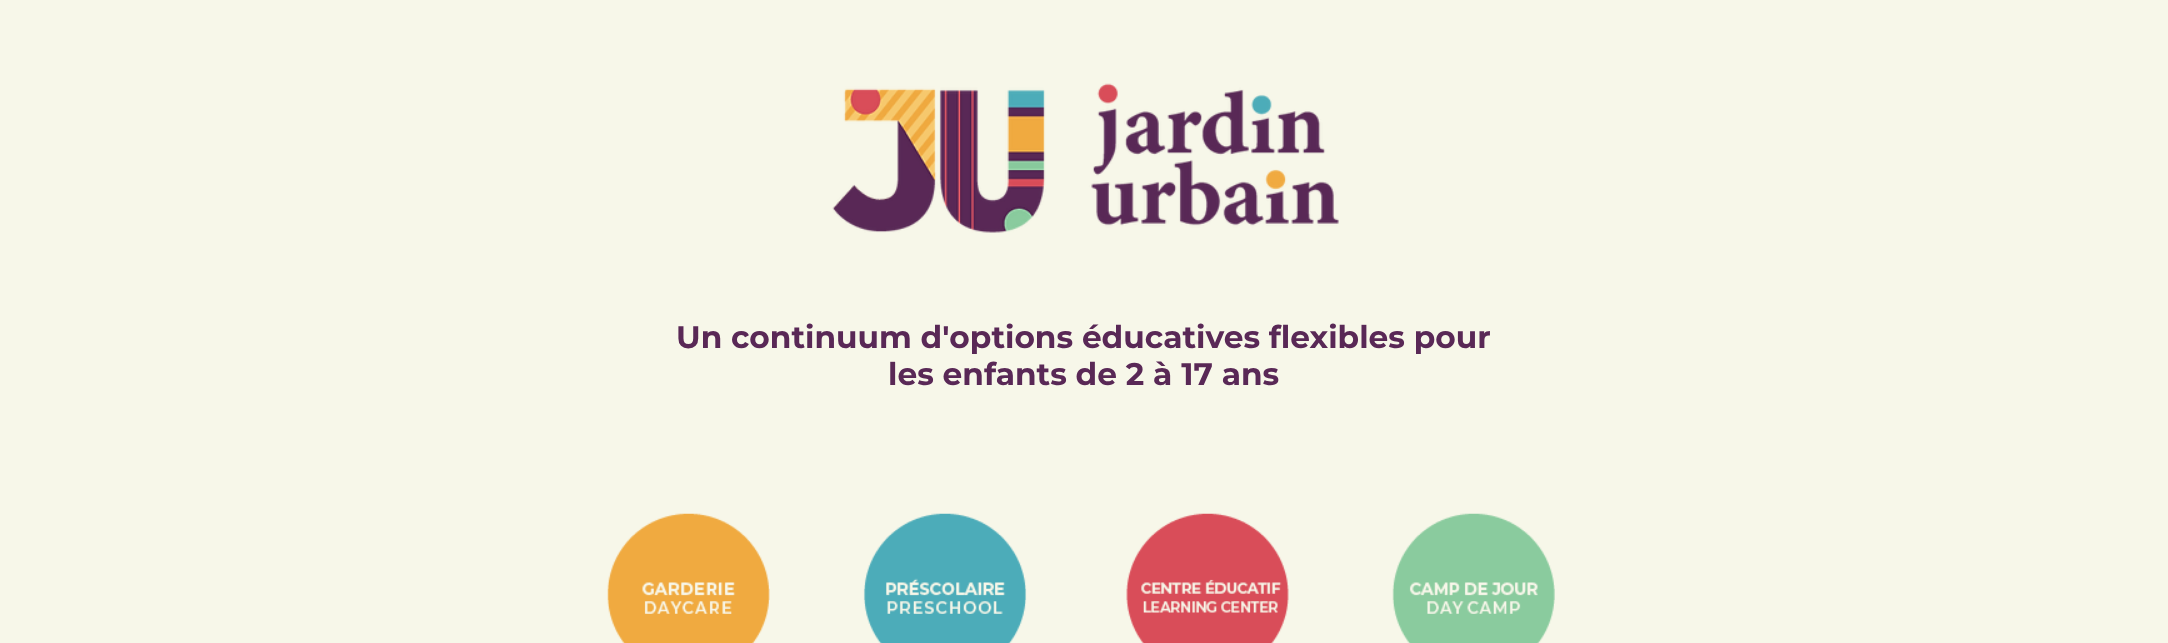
<svg xmlns="http://www.w3.org/2000/svg" width="2168" height="643">
<style>
.a{font:bold 31.25px Montserrat;fill:#592856}
</style>
<rect width="100%" height="100%" fill="#f7f7e9"/>
<image href="1.png" x="832" y="83" width="507" height="150"/>
<image href="2.png" x="607" y="513" width="163" height="130"/>
<image href="3.png" x="863" y="513" width="164" height="130"/>
<image href="4.png" x="1126" y="513" width="163" height="130"/>
<image href="5.png" x="1392" y="513" width="163" height="130"/>
<text class="a" x="676" y="348">Un continuum d'options éducatives flexibles pour</text>
<text class="a" x="888" y="385">les enfants de 2 à 17 ans</text>
</svg>
